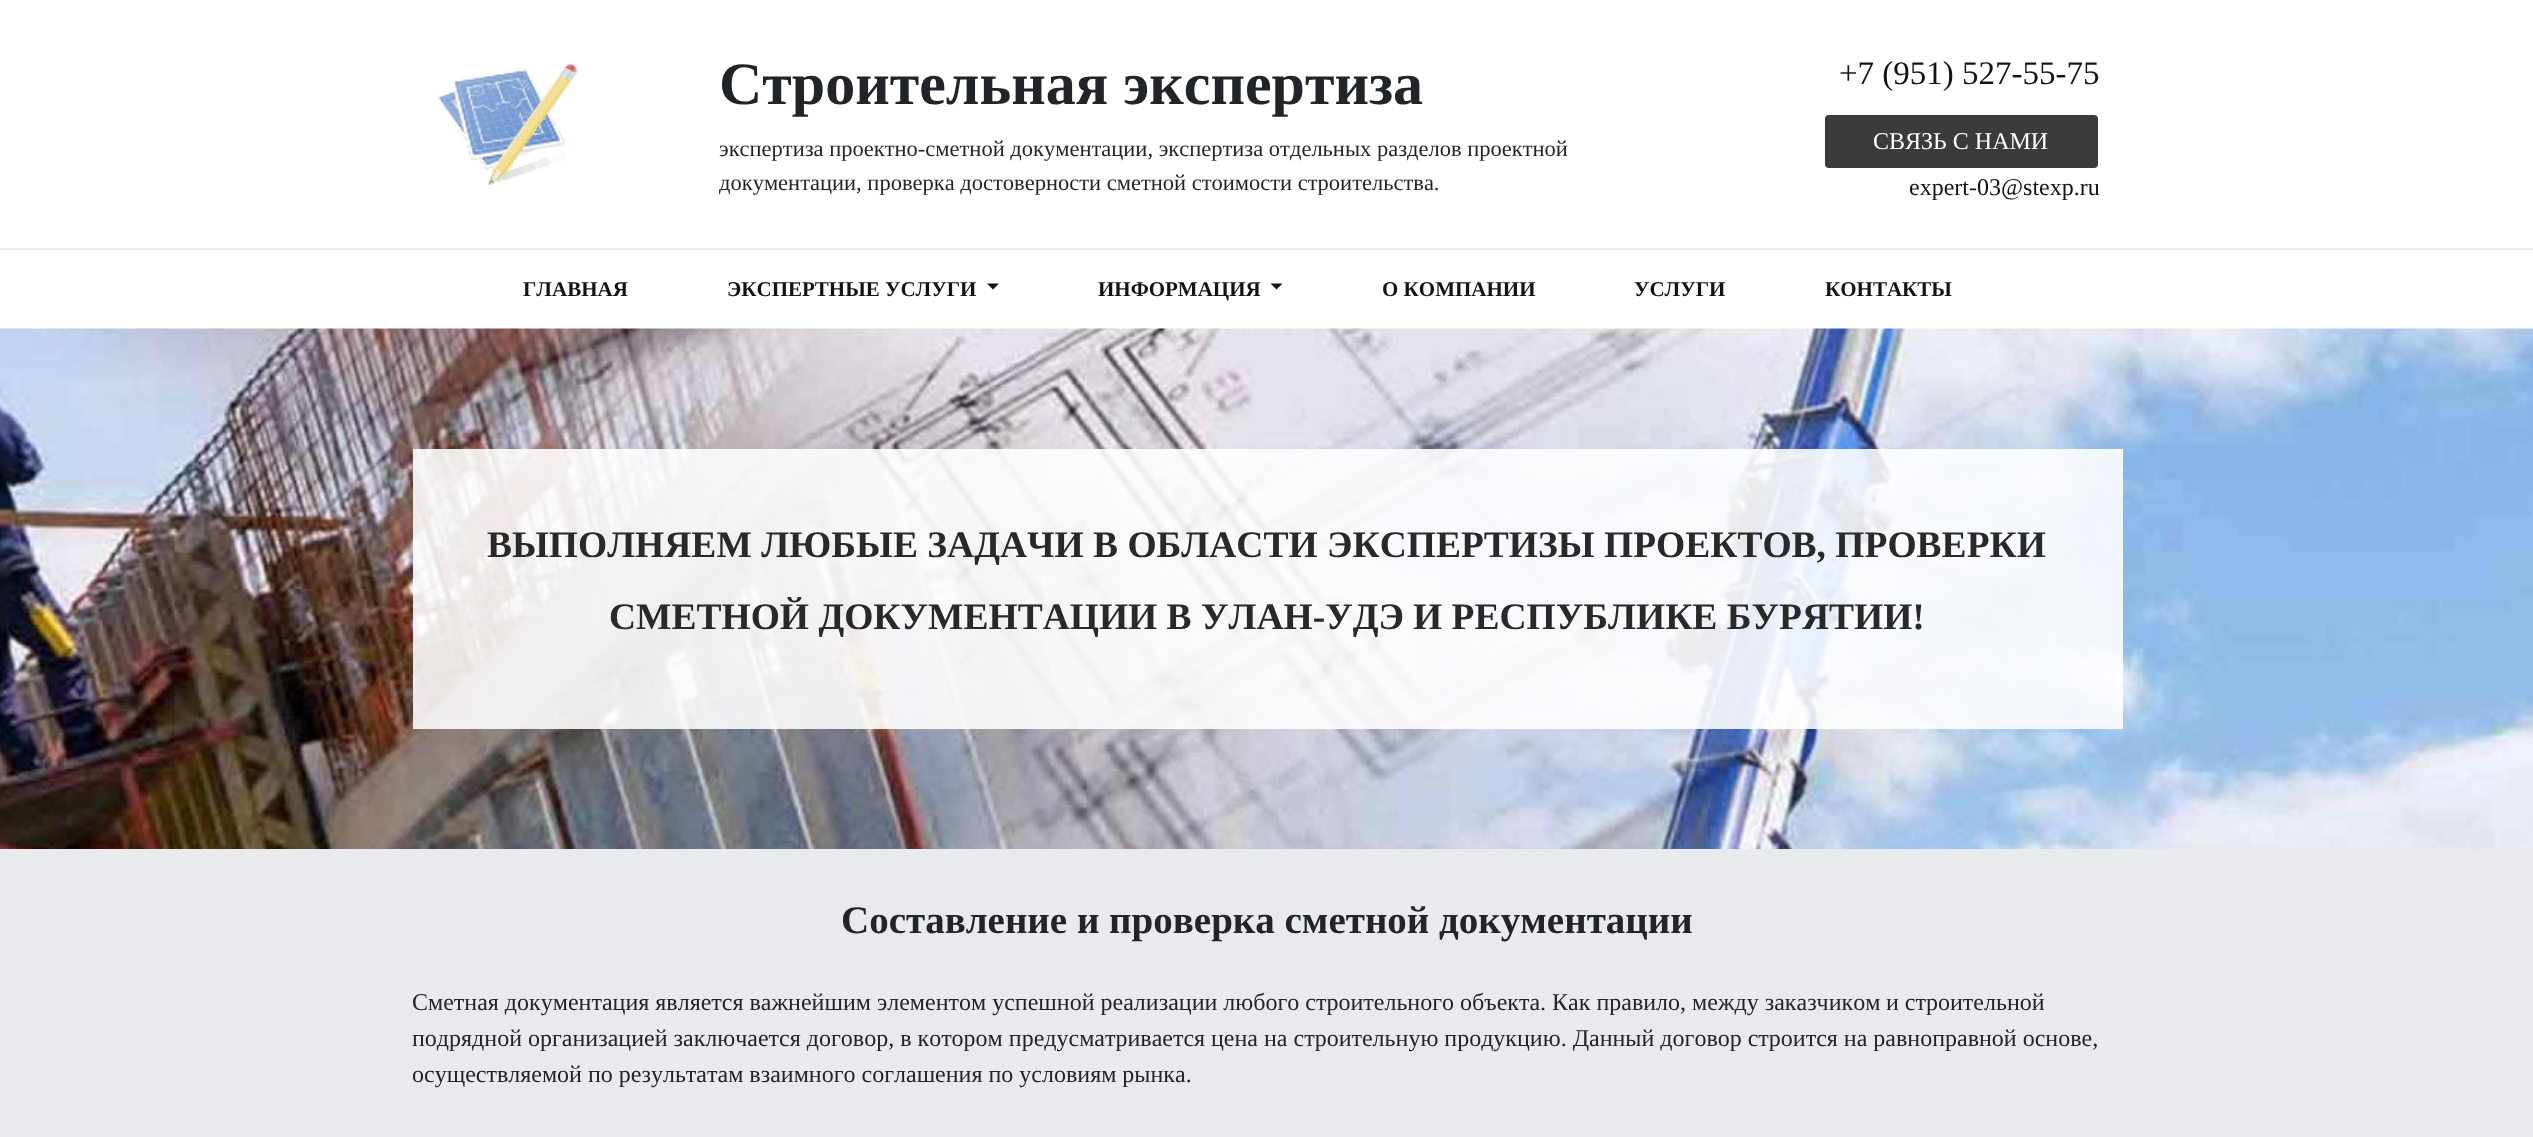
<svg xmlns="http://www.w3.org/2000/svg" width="2533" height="1137">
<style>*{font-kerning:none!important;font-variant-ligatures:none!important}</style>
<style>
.a{font:bold 60px Liberation Serif;fill:#212529}
.b{font:22.5px Liberation Serif;fill:#212529}
.c{font:33px Liberation Serif;fill:#131313}
.d{font:24px Liberation Serif;fill:#fff}
.e{font:24px Liberation Serif;fill:#131313}
.f{font:bold 21px Liberation Serif;fill:#131313}
.g{font:bold 37.5px Liberation Serif;fill:#292929}
.h{font:bold 39px Liberation Serif;fill:#212529}
.i{font:24px Liberation Serif;fill:#212529}
</style>
<rect width="100%" height="100%" fill="#fff"/>
<path fill="#e8e9eb" d="M0 248h2533v2H0z"/>
<image href="1.png" x="437" y="63" width="142" height="122"/>
<rect fill="#3c3a3c" stroke="#fff" stroke-width="2" x="1824" y="114" width="275" height="55" rx="5"/>
<path fill="#131313" d="M987 283.5h12l-6 6z"/>
<path fill="#131313" d="M1270.5 283.5h12l-6 6z"/>
<image href="2.png" x="0" y="328" width="2533" height="521"/>
<path fill="#ffffffe0" d="M413 449h1710v280H413z"/>
<path fill="#e8eaee" d="M0 849h2533v288H0z"/>
<text class="a" x="719" y="104">Cтроительная экспертиза</text>
<text class="b" x="719" y="156">экспертиза проектно-сметной документации, экспертиза отдельных разделов проектной</text>
<text class="b" x="719" y="190">документации, проверка достоверности сметной стоимости строительства.</text>
<text class="c" x="1839" y="84">+7 (951) 527-55-75</text>
<text class="d" x="1873" y="149">CВЯЗЬ С НАМИ</text>
<text class="e" x="1909" y="195">expert-03@stexp.ru</text>
<text class="f" x="523" y="296">ГЛАВНАЯ</text>
<text class="f" x="727" y="296">ЭКСПЕРТНЫЕ УСЛУГИ</text>
<text class="f" x="1098" y="296">ИНФОРМАЦИЯ</text>
<text class="f" x="1382" y="296">О КОМПАНИИ</text>
<text class="f" x="1634" y="296">УСЛУГИ</text>
<text class="f" x="1825" y="296">КОНТАКТЫ</text>
<text class="g" x="487" y="557">ВЫПОЛНЯЕМ ЛЮБЫЕ ЗАДАЧИ</text>
<text class="g" x="1093" y="557">В ОБЛАСТИ ЭКСПЕРТИЗЫ ПРОЕКТОВ, ПРОВЕРКИ</text>
<text class="g" x="609" y="629">СМЕТНОЙ ДОКУМЕНТАЦИИ В УЛАН-УДЭ</text>
<text class="g" x="1413" y="629">И РЕСПУБЛИКЕ БУРЯТИИ!</text>
<text class="h" x="841" y="933">Составление и проверка сметной документации</text>
<text class="i" x="412" y="1010">Сметная документация является важнейшим элементом успешной реализации любого строительного объекта. Как правило, между заказчиком</text>
<text class="i" x="1886" y="1010">и строительной</text>
<text class="i" x="412" y="1046">подрядной организацией заключается договор, в котором предусматривается</text>
<text class="i" x="1211" y="1046">цена на строительную продукцию. Данный договор строится на равноправной основе,</text>
<text class="i" x="412" y="1082">осуществляемой по результатам взаимного соглашения по условиям рынка.</text>
</svg>
